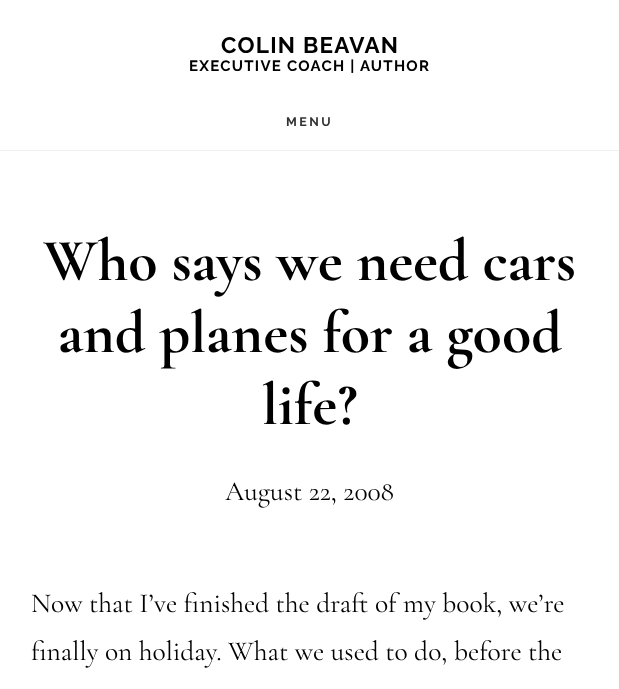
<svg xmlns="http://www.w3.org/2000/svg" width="619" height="689">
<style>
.a{font:100 22.5px Raleway;letter-spacing:1.25px;fill:#000}
.b{font:100 15px Raleway;letter-spacing:1.25px;fill:#000}
.c{font:100 12.5px Raleway;letter-spacing:2.5px;fill:#333}
.d{font:bold 60px Cormorant Garamond;fill:#000}
.e{font:27.5px Cormorant Garamond;fill:#000}
</style>
<rect width="100%" height="100%" fill="#fff"/>
<path fill="#eee" d="M0 150h619v1H0z"/>
<text class="a" x="221" y="53">COLIN BEAVAN</text>
<text class="b" x="189" y="71">EXECUTIVE COACH | AUTHOR</text>
<text class="c" x="286" y="126">MENU</text>
<text class="d" x="43" y="280">Who says we need cars</text>
<text class="d" x="58" y="352">and planes for a good</text>
<text class="d" x="262" y="424">life?</text>
<text class="e" x="225" y="500">August 22, 2008</text>
<text class="e" x="31" y="612">Now that I’ve finished the draft of my book, we’re</text>
<text class="e" x="31" y="660">finally on holiday. What we used to do, before the</text>
</svg>
